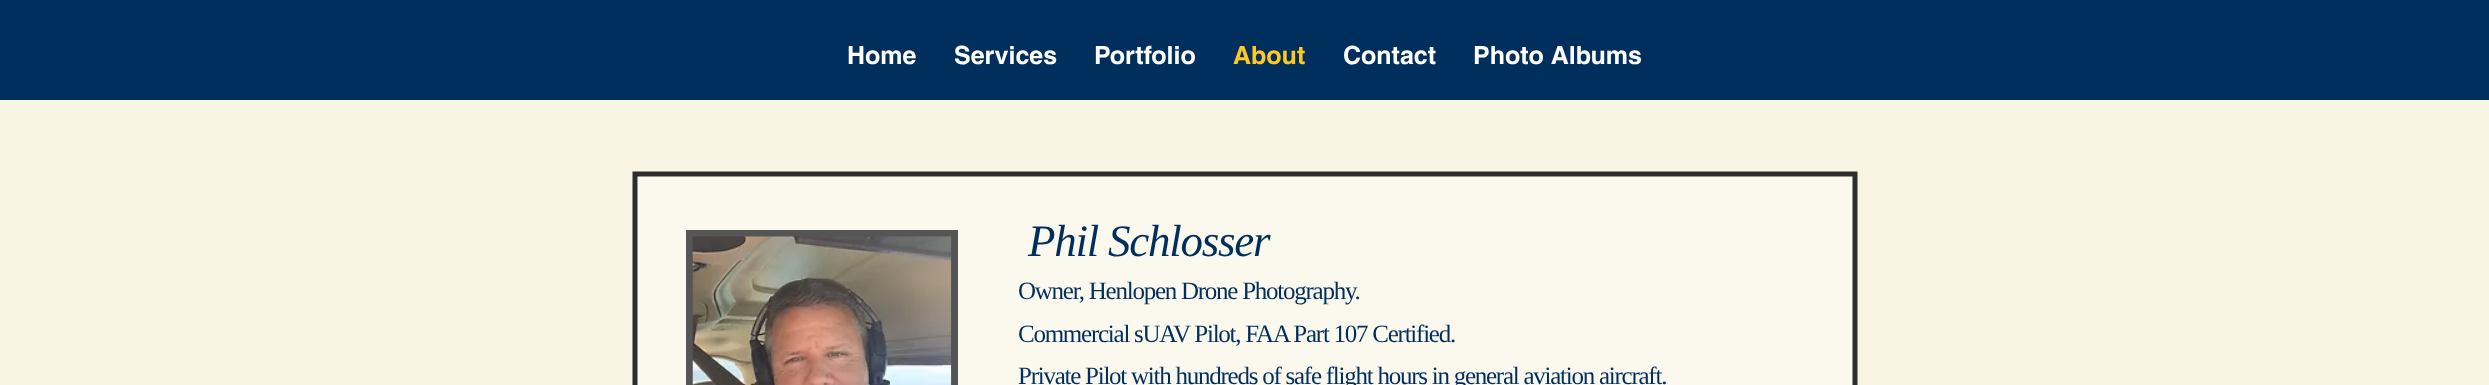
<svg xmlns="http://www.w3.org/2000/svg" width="2489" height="385">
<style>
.a{font:bold 25px helvetica;fill:#fff}
.b{font:bold 25px helvetica;fill:#ffc824}
.c{font:italic 45px Liberation Serif;letter-spacing:-1.25px;fill:#002e5d}
.d{font:25px Liberation Serif;letter-spacing:-1.25px;fill:#002e5d}
</style>
<rect width="100%" height="100%" fill="#f7f5e1"/>
<path fill="#002e5d" d="M0 0h2489v100H0z"/>
<path fill="#fbf9ed" d="M635 174h1220v211H635z"/>
<path fill="none" stroke="#2a2a2afc" stroke-width="5" d="M1855 174v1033.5h-1220v-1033.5z"/>
<path fill="#555" d="M686 230h272v155H686z"/>
<image href="1.png" x="692" y="236" width="260" height="149"/>
<text class="a" x="847" y="64">Home</text>
<text class="a" x="954" y="64">Services</text>
<text class="a" x="1094" y="64">Portfolio</text>
<text class="b" x="1233" y="64">About</text>
<text class="a" x="1343" y="64">Contact</text>
<text class="a" x="1473" y="64">Photo Albums</text>
<text class="c" x="1028" y="256">Phil Schlosser</text>
<text class="d" x="1018" y="299">Owner, Henlopen Drone Photography.</text>
<text class="d" x="1018" y="342">Commercial sUAV Pilot, FAA Part 107 Certified.</text>
<text class="d" x="1018" y="384">Private Pilot with hundreds of safe flight hours in general aviation aircraft.</text>
</svg>
